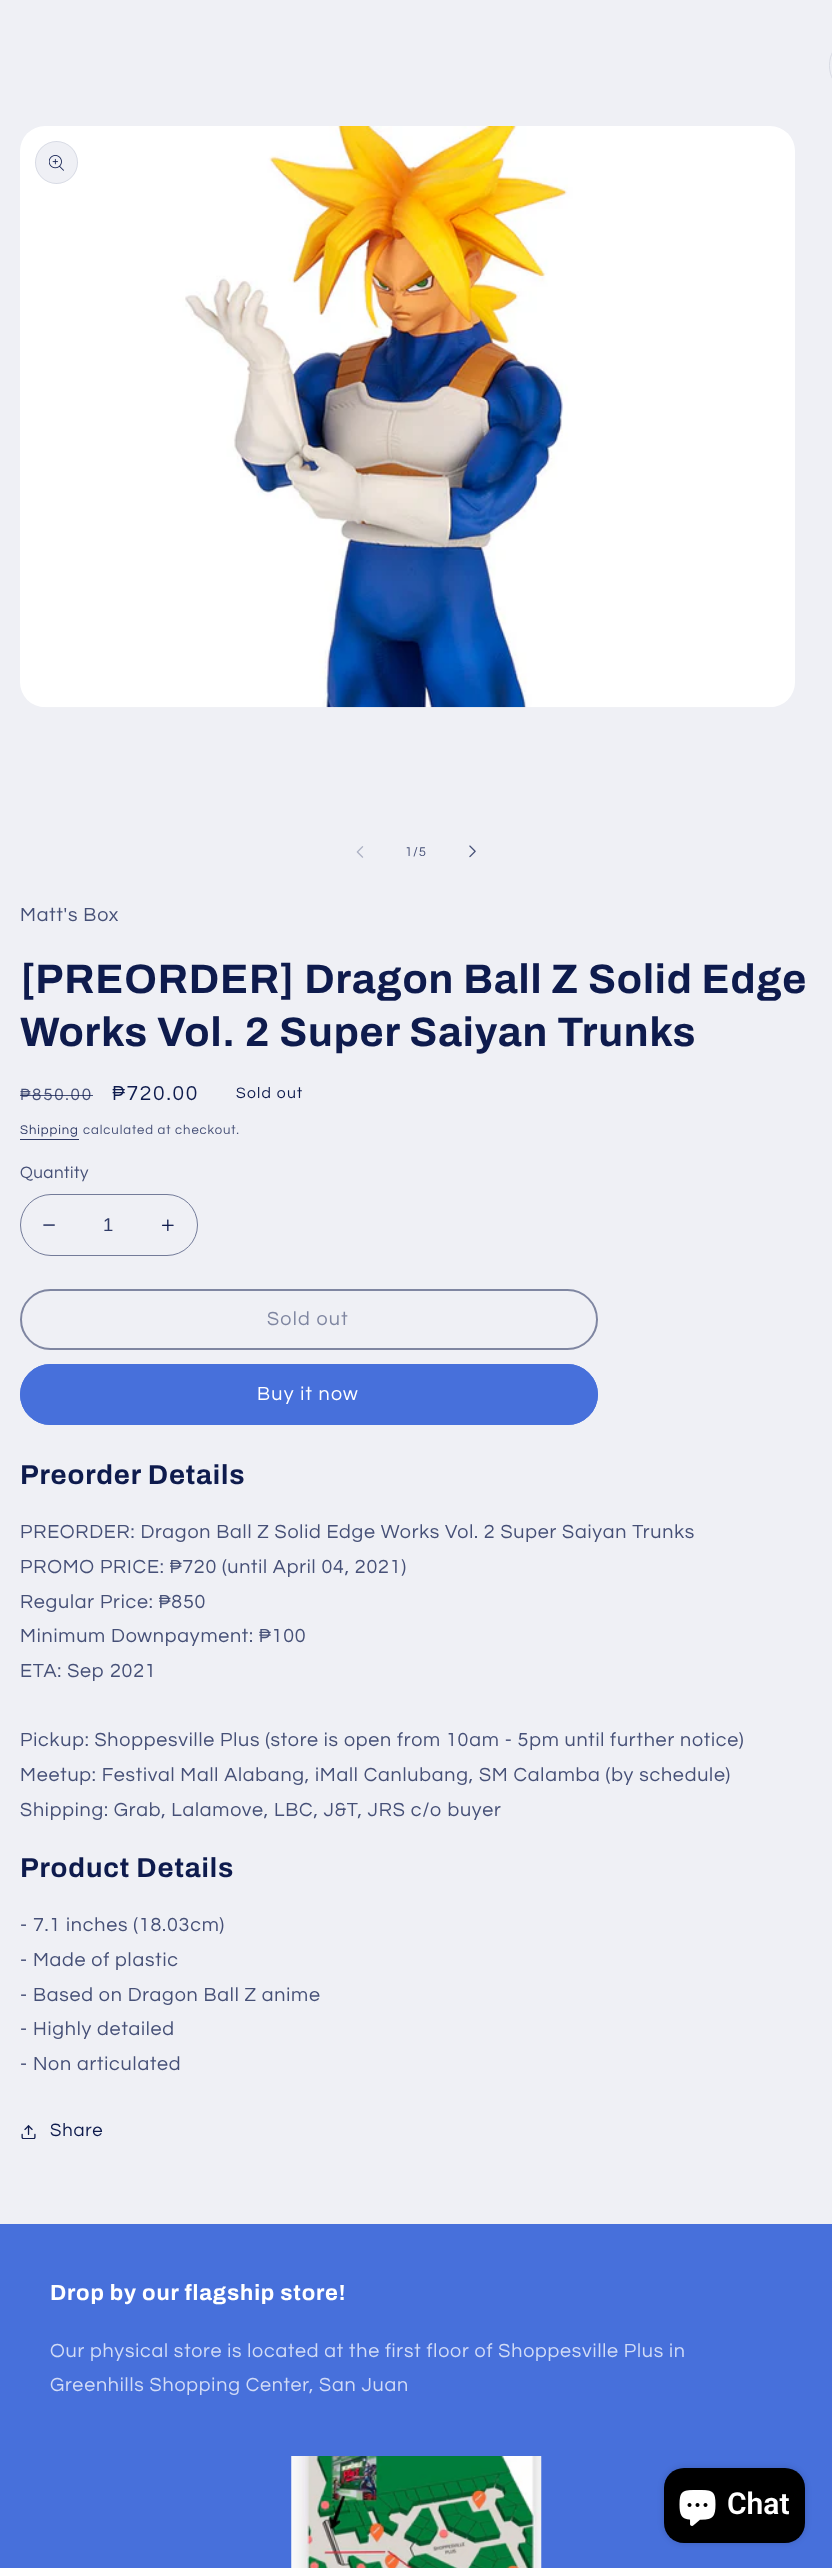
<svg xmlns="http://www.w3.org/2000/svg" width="832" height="2568">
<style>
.a{font:13.1px Questrial;letter-spacing:0.9px;fill:#465077}
.b{font:19.7px Questrial;letter-spacing:0.8px;fill:#465077}
.c{font:bold 41.25px Archivo;letter-spacing:0.85px;fill:#0e1b4d}
.d{font:17px Questrial;letter-spacing:1.75px;fill:#465077}
.e{font:21px Questrial;letter-spacing:1.75px;fill:#0e1b4d}
.f{font:15.75px Questrial;letter-spacing:1.25px;fill:#0e1b4d}
.g{font:13.1px Questrial;letter-spacing:0.9px;fill:#303b66}
.h{font:17px Questrial;letter-spacing:0.5px;fill:#465077}
.i{font:18.5px Liberation Sans;fill:#303b66}
.j{font:19.7px Questrial;letter-spacing:1.25px;fill:#7f86a1}
.k{font:19.7px Questrial;letter-spacing:1.25px;fill:#fff}
.l{font:bold 27.5px Archivo;letter-spacing:0.85px;fill:#0e1b4d}
.m{font:18.5px Questrial;letter-spacing:0.8px;fill:#0e1b4d}
.n{font:bold 22px Archivo;letter-spacing:0.85px;fill:#fff}
.o{font:19.7px Questrial;letter-spacing:0.8px;fill:#d1dbf6}
.p{font:600 30px Roboto;fill:#fff}
</style>
<rect width="100%" height="100%" fill="#eff0f5"/>
<rect fill="none" stroke="#d8dbe4" x="829.5" y="45.5" width="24" height="40" rx="20"/>
<image href="1.png" x="20" y="126" width="775" height="582"/>
<circle fill="#eff0f5" cx="56.5" cy="162.5" r="21.5"/>
<circle fill="none" stroke="#0e1b4d1a" cx="56.5" cy="162.5" r="21"/>
<image href="2.png" x="49" y="155" width="15" height="16"/>
<image href="3.png" x="356" y="846" width="8" height="12"/>
<image href="4.png" x="469" y="845" width="7" height="13"/>
<path fill="#303b66" d="M20 1139h59v1H20z"/>
<image href="5.png" x="43" y="1224" width="12" height="2"/>
<image href="6.png" x="161" y="1219" width="13" height="12"/>
<rect fill="none" stroke="#737b99" x="20.5" y="1194.5" width="177" height="61" rx="30.5"/>
<rect fill="none" stroke="#7f86a1" stroke-width="2" x="21" y="1290" width="576" height="59" rx="29.5"/>
<rect fill="#4770db" x="20" y="1364" width="578" height="61" rx="30.5"/>
<rect fill="none" stroke="#4770db" x="20.5" y="1364.5" width="577" height="60" rx="30"/>
<image href="7.png" x="21" y="2125" width="15" height="14"/>
<path fill="#4770db" d="M0 2224h832v344H0z"/>
<image href="8.png" x="291" y="2456" width="251" height="112"/>
<rect fill="#00000026" filter="blur(3px)" x="664" y="2468" width="141" height="75" rx="20"/>
<rect fill="#000" x="664" y="2468" width="141" height="75" rx="20"/>
<image href="9.png" x="679" y="2490" width="37" height="36"/>
<text class="a" x="405" y="856">1/5</text>
<text class="b" x="20" y="921">Matt's Box</text>
<text class="c" x="20" y="993">[PREORDER] Dragon Ball Z Solid Edge</text>
<text class="c" x="20" y="1046">Works Vol. 2 Super Saiyan Trunks</text>
<text class="d" x="20" y="1100">₱850.00</text>
<path fill="#0e1b4dbf" d="M20 1095h73v1H20z"/>
<text class="e" x="112" y="1100">₱720.00</text>
<text class="f" x="236" y="1098">Sold out</text>
<text class="g" x="20" y="1134">Shipping</text>
<text class="a" x="83" y="1134">calculated at checkout.</text>
<text class="h" x="20" y="1178">Quantity</text>
<text class="i" x="103" y="1231">1</text>
<text class="j" x="267" y="1325">Sold out</text>
<text class="k" x="257" y="1400">Buy it now</text>
<text class="l" x="20" y="1484">Preorder Details</text>
<text class="b" x="20" y="1538">PREORDER: Dragon Ball Z Solid Edge Works Vol. 2 Super Saiyan Trunks</text>
<text class="b" x="20" y="1573">PROMO PRICE: ₱720 (until April 04, 2021)</text>
<text class="b" x="20" y="1608">Regular Price: ₱850</text>
<text class="b" x="20" y="1642">Minimum Downpayment: ₱100</text>
<text class="b" x="20" y="1677">ETA: Sep 2021</text>
<text class="b" x="20" y="1746">Pickup: Shoppesville Plus (store is open from 10am - 5pm until further notice)</text>
<text class="b" x="20" y="1781">Meetup: Festival Mall Alabang, iMall Canlubang, SM Calamba (by schedule)</text>
<text class="b" x="20" y="1816">Shipping: Grab, Lalamove, LBC, J&amp;T, JRS c/o buyer</text>
<text class="l" x="20" y="1877">Product Details</text>
<text class="b" x="20" y="1931">- 7.1 inches (18.03cm)</text>
<text class="b" x="20" y="1966">- Made of plastic</text>
<text class="b" x="20" y="2001">- Based on Dragon Ball Z anime</text>
<text class="b" x="20" y="2035">- Highly detailed</text>
<text class="b" x="20" y="2070">- Non articulated</text>
<text class="m" x="50" y="2136">Share</text>
<text class="n" x="50" y="2300">Drop by our flagship store!</text>
<text class="o" x="50" y="2357">Our physical store is located at the first floor of Shoppesville Plus in</text>
<text class="o" x="50" y="2391">Greenhills Shopping Center, San Juan</text>
<text class="p" x="727" y="2514">Chat</text>
</svg>
